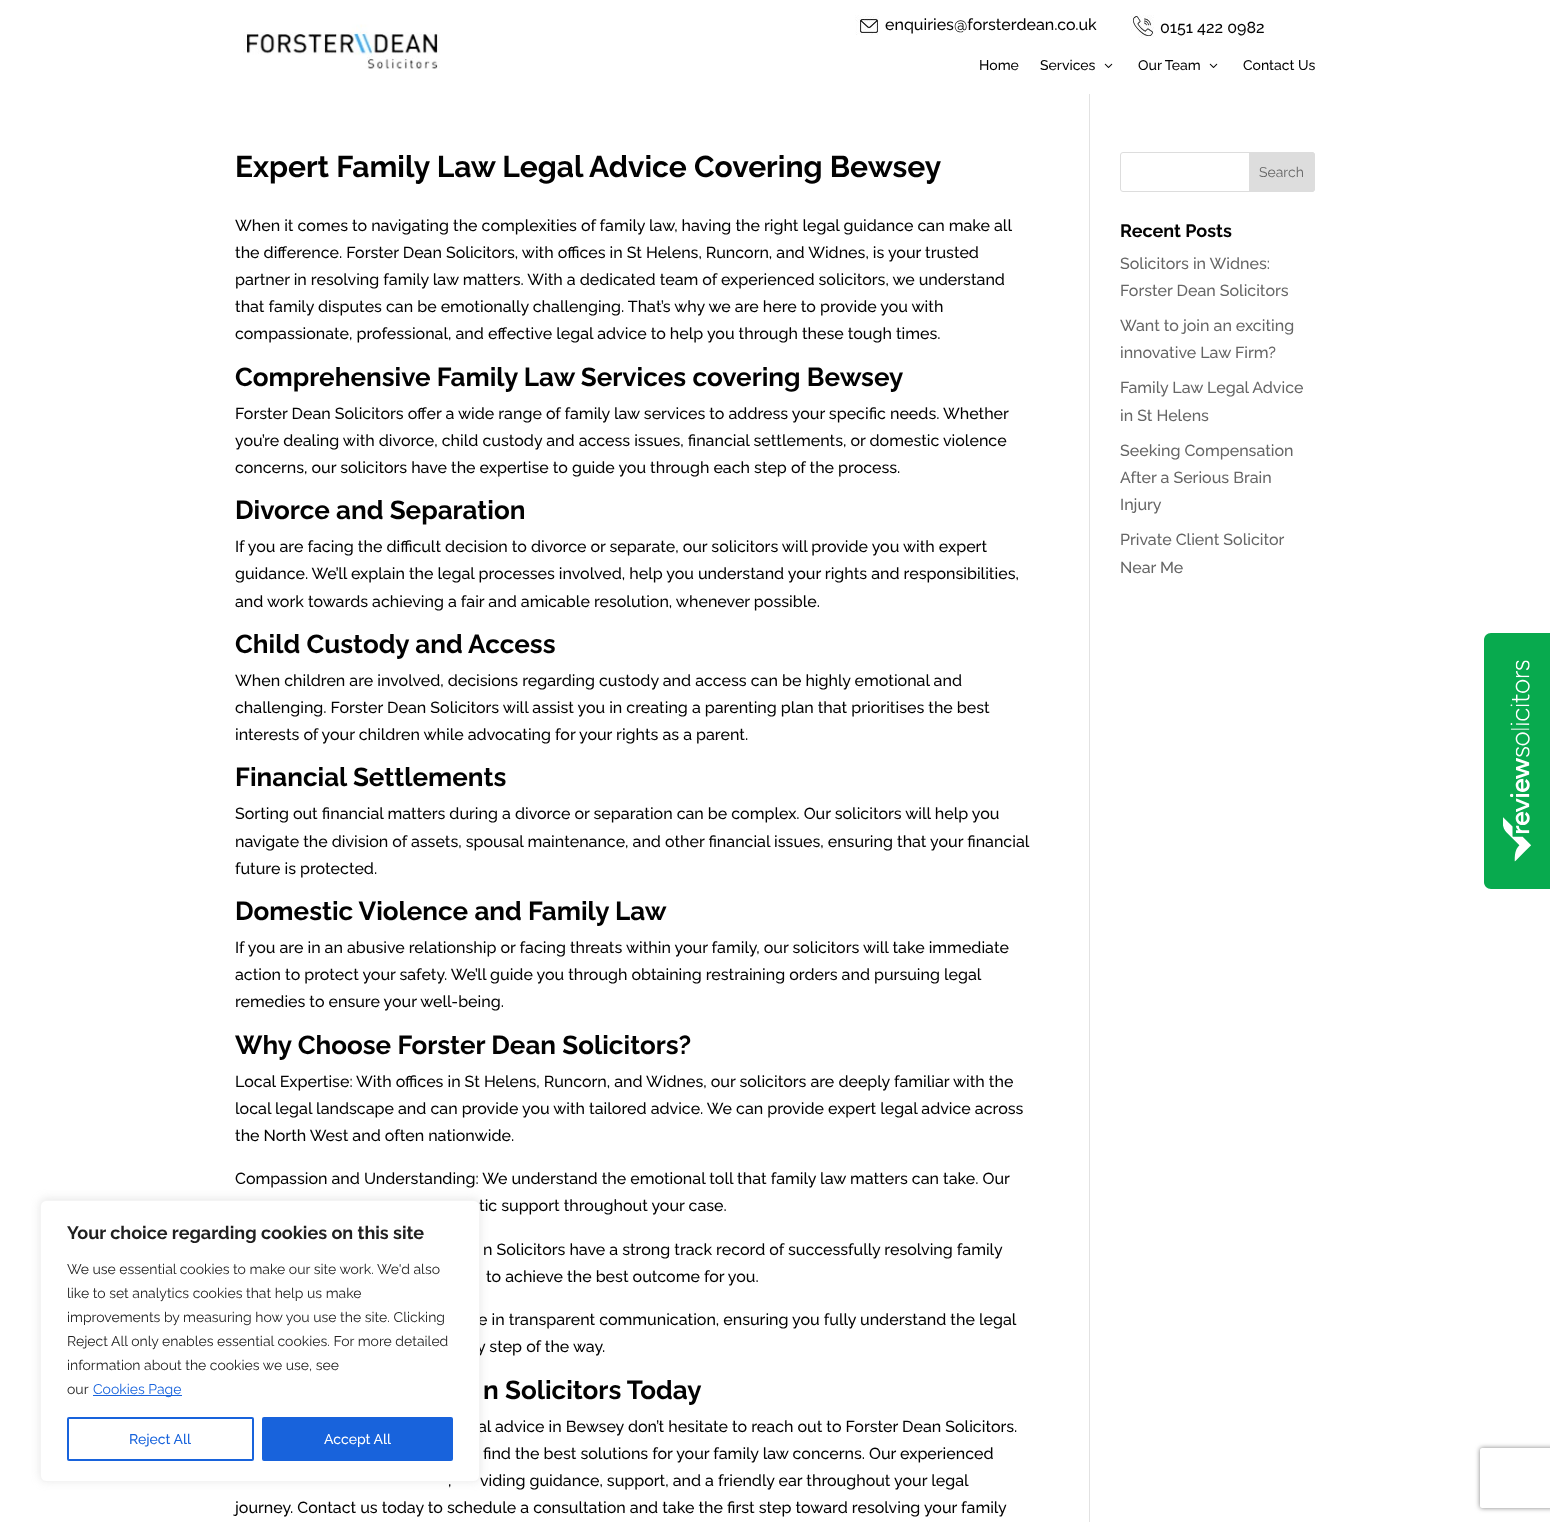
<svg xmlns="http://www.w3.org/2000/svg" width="1550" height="1522">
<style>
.a{font:500 16px Raleway;fill:#020202}
.b{font:500 14px Raleway;fill:#020202}
.c{font:bold 30px Raleway;fill:#020202}
.d{font:bold 26px Raleway;fill:#020202}
.e{font:14px Raleway;fill:#666}
.f{font:bold 18px Raleway;fill:#020202}
.g{font:500 16px Raleway;fill:#666}
.h{font:bold 18px Raleway;fill:#212121}
.i{font:14px Raleway;fill:#212121}
.j{font:14px Raleway;fill:#1863dc}
.k{font:500 14px Raleway;fill:#1863dc}
.l{font:500 14px Raleway;fill:#fff}
</style>
<defs>
<clipPath id="clip1"><path d="M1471 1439h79v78h-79zm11 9h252c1 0 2 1 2 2v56c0 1-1 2-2 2h-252c-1 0-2-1-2-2v-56c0-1 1-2 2-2z" clip-rule="evenodd"/></clipPath>
</defs>
<rect width="100%" height="100%" fill="#fff"/>
<image href="1.png" x="243" y="24" width="197" height="45"/>
<image href="2.png" x="855" y="15" width="24" height="20"/>
<image href="3.png" x="1130" y="15" width="24" height="23"/>
<image href="4.png" x="1104" y="63" width="9" height="5"/>
<image href="4.png" x="1209" y="63" width="9" height="5"/>
<path fill="#e2e2e2" d="M1089 94h1v1428H1089z"/>
<rect fill="none" stroke="#ddd" x="1120.5" y="152.5" width="194" height="39" rx="2.5"/>
<path fill="#ddd" stroke="#ddd" d="M1249.5 152.5h62.5c1.5 0 2.5 1 2.5 2.5v34c0 1.5-1 2.5-2.5 2.5h-62.5z"/>
<path fill="#08aa4e" d="M1491 633h59v256h-59c-4 0-7-3-7-7v-242c0-4 3-7 7-7z"/>
<image href="5.png" x="1503" y="660" width="28" height="202"/>
<rect fill="#acabab4d" filter="blur(5px)" x="40" y="1199" width="440" height="282" rx="6"/>
<g clip-path="url(#clip1)">
<rect fill="#808080" filter="blur(2.5px)" x="1480" y="1448" width="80" height="60" rx="2"/>
</g>
<text class="a" x="885" y="30">enquiries@forsterdean.co.uk</text>
<text class="a" x="1160" y="33">0151 422 0982</text>
<text class="b" x="979" y="70">Home</text>
<text class="b" x="1040" y="70">Services</text>
<text class="b" x="1138" y="70">Our Team</text>
<text class="b" x="1243" y="70">Contact Us</text>
<text class="c" x="235" y="177">Expert Family Law Legal Advice Covering Bewsey</text>
<text class="a" x="235" y="231">When it comes to navigating the complexities of family law, having the right legal guidance can make all</text>
<text class="a" x="235" y="258">the difference. Forster Dean Solicitors, with offices in St Helens, Runcorn, and Widnes, is your trusted</text>
<text class="a" x="235" y="285">partner in resolving family law matters. With a dedicated team of experienced solicitors, we understand</text>
<text class="a" x="235" y="312">that family disputes can be emotionally challenging. That’s why we are here to provide you with</text>
<text class="a" x="235" y="339">compassionate, professional, and effective legal advice to help you through these tough times.</text>
<text class="d" x="235" y="386">Comprehensive Family Law Services covering Bewsey</text>
<text class="a" x="235" y="419">Forster Dean Solicitors offer a wide range of family law services to address your specific needs. Whether</text>
<text class="a" x="235" y="446">you’re dealing with divorce, child custody and access issues, financial settlements, or domestic violence</text>
<text class="a" x="235" y="473">concerns, our solicitors have the expertise to guide you through each step of the process.</text>
<text class="d" x="235" y="519">Divorce and Separation</text>
<text class="a" x="235" y="552">If you are facing the difficult decision to divorce or separate, our solicitors will provide you with expert</text>
<text class="a" x="235" y="579">guidance. We’ll explain the legal processes involved, help you understand your rights and responsibilities,</text>
<text class="a" x="235" y="607">and work towards achieving a fair and amicable resolution, whenever possible.</text>
<text class="d" x="235" y="653">Child Custody and Access</text>
<text class="a" x="235" y="686">When children are involved, decisions regarding custody and access can be highly emotional and</text>
<text class="a" x="235" y="713">challenging. Forster Dean Solicitors will assist you in creating a parenting plan that prioritises the best</text>
<text class="a" x="235" y="740">interests of your children while advocating for your rights as a parent.</text>
<text class="d" x="235" y="786">Financial Settlements</text>
<text class="a" x="235" y="819">Sorting out financial matters during a divorce or separation can be complex. Our solicitors will help you</text>
<text class="a" x="235" y="847">navigate the division of assets, spousal maintenance, and other financial issues, ensuring that your financial</text>
<text class="a" x="235" y="874">future is protected.</text>
<text class="d" x="235" y="920">Domestic Violence and Family Law</text>
<text class="a" x="235" y="953">If you are in an abusive relationship or facing threats within your family, our solicitors will take immediate</text>
<text class="a" x="235" y="980">action to protect your safety. We’ll guide you through obtaining restraining orders and pursuing legal</text>
<text class="a" x="235" y="1007">remedies to ensure your well-being.</text>
<text class="d" x="235" y="1054">Why Choose Forster Dean Solicitors?</text>
<text class="a" x="235" y="1087">Local Expertise: With offices in St Helens, Runcorn, and Widnes, our solicitors are deeply familiar with the</text>
<text class="a" x="235" y="1114">local legal landscape and can provide you with tailored advice. We can provide expert legal advice across</text>
<text class="a" x="235" y="1141">the North West and often nationwide.</text>
<text class="a" x="235" y="1184">Compassion and Understanding: We understand the emotional toll that family law matters can take. Our</text>
<text class="a" x="479" y="1211">tic support throughout your case.</text>
<text class="a" x="483" y="1255">n Solicitors have a strong track record of successfully resolving family</text>
<text class="a" x="486" y="1282">to achieve the best outcome for you.</text>
<text class="a" x="478" y="1325">e in transparent communication, ensuring you fully understand the legal</text>
<text class="a" x="477" y="1352">y step of the way.</text>
<text class="d" x="483" y="1399">n Solicitors Today</text>
<text class="a" x="478" y="1432">al advice in Bewsey don’t hesitate to reach out to Forster Dean Solicitors.</text>
<text class="a" x="483" y="1459">find the best solutions for your family law concerns. Our experienced</text>
<text class="a" x="448" y="1486">,</text>
<text class="a" x="480" y="1486">viding guidance, support, and a friendly ear throughout your legal</text>
<text class="a" x="235" y="1513">journey. Contact us today to schedule a consultation and take the first step toward resolving your family</text>
<text class="e" x="1259" y="177">Search</text>
<text class="f" x="1120" y="237">Recent Posts</text>
<text class="g" x="1120" y="269">Solicitors in Widnes:</text>
<text class="g" x="1120" y="296">Forster Dean Solicitors</text>
<text class="g" x="1120" y="331">Want to join an exciting</text>
<text class="g" x="1120" y="358">innovative Law Firm?</text>
<text class="g" x="1120" y="393">Family Law Legal Advice</text>
<text class="g" x="1120" y="421">in St Helens</text>
<text class="g" x="1120" y="456">Seeking Compensation</text>
<text class="g" x="1120" y="483">After a Serious Brain</text>
<text class="g" x="1120" y="510">Injury</text>
<text class="g" x="1120" y="545">Private Client Solicitor</text>
<text class="g" x="1120" y="573">Near Me</text>
<rect fill="#fff" stroke="#f4f4f4" x="40.5" y="1200.5" width="439" height="281" rx="5.5"/>
<text class="h" x="67" y="1239">Your choice regarding cookies on this site</text>
<text class="i" x="67" y="1274">We use essential cookies to make our site work. We'd also</text>
<text class="i" x="67" y="1298">like to set analytics cookies that help us make</text>
<text class="i" x="67" y="1322">improvements by measuring how you use the site. Clicking</text>
<text class="i" x="67" y="1346">Reject All only enables essential cookies. For more detailed</text>
<text class="i" x="67" y="1370">information about the cookies we use, see</text>
<text class="i" x="67" y="1394">our</text>
<path fill="#1863dc" d="M93 1395h89v1H93z"/>
<text class="j" x="93" y="1394">Cookies Page</text>
<rect fill="none" stroke="#1863dc" stroke-width="2" x="68" y="1418" width="185" height="42" rx="1"/>
<text class="k" x="129" y="1444">Reject All</text>
<rect fill="#1863dc" stroke="#1863dc" stroke-width="2" x="263" y="1418" width="189" height="42" rx="1"/>
<text class="l" x="324" y="1444">Accept All</text>
</svg>
